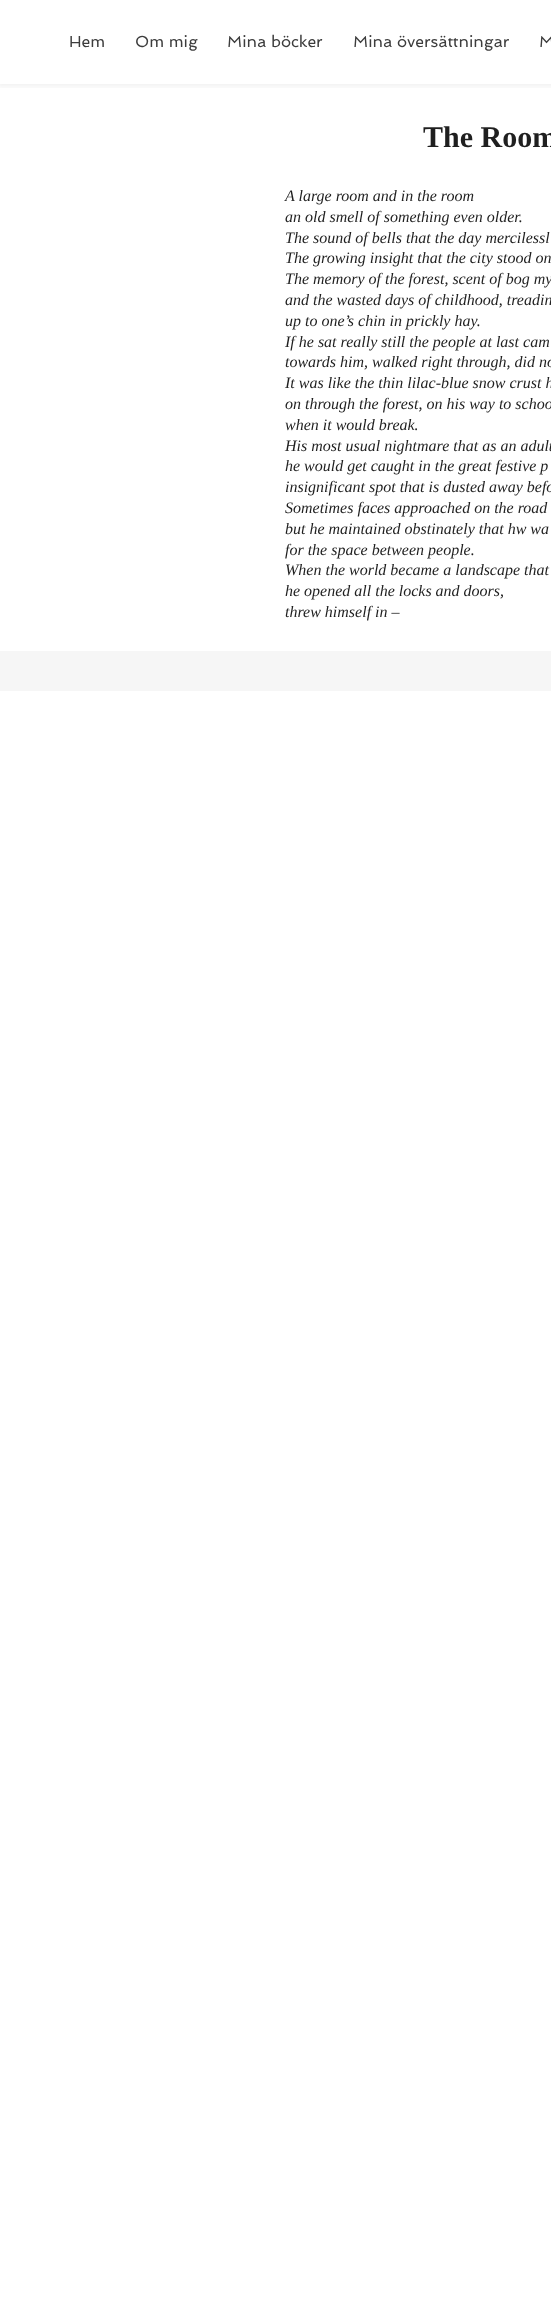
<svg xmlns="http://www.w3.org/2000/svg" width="551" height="2309">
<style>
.a{font:16px Spinnaker;fill:#3d3d3d}
.b{font:bold 30px Liberation Serif;fill:#1f1f1f}
.c{font:italic 16px Liberation Serif;fill:#1f1f1f}
</style>
<defs>
<clipPath id="clip1"><path d="M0 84h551v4H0z"/></clipPath>
</defs>
<rect width="100%" height="100%" fill="#fff"/>
<g clip-path="url(#clip1)">
<path fill="#0000000d" filter="blur(2.5px)" d="M-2 -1h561v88H-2z"/>
</g>
<path fill="#f6f6f6" d="M0 651h551v40H0z"/>
<text class="a" x="69" y="47">Hem</text>
<text class="a" x="135" y="47">Om mig</text>
<text class="a" x="227" y="47">Mina böcker</text>
<text class="a" x="353" y="47">Mina översättningar</text>
<text class="a" x="539" y="47">M</text>
<text class="b" x="423" y="147">The Room</text>
<text class="c" x="285" y="201">A large room and in the room</text>
<text class="c" x="285" y="222">an old smell of something even older.</text>
<text class="c" x="285" y="243">The sound of bells that the day mercilessl</text>
<text class="c" x="285" y="263">The growing insight that the city stood on</text>
<text class="c" x="285" y="284">The memory of the forest, scent of bog my</text>
<text class="c" x="285" y="305">and the wasted days of childhood, treadin</text>
<text class="c" x="285" y="326">up to one’s chin in prickly hay.</text>
<text class="c" x="285" y="347">If he sat really still the people at last cam</text>
<text class="c" x="285" y="367">towards him, walked right through, did no</text>
<text class="c" x="285" y="388">It was like the thin lilac-blue snow crust h</text>
<text class="c" x="285" y="409">on through the forest, on his way to schoo</text>
<text class="c" x="285" y="430">when it would break.</text>
<text class="c" x="285" y="451">His most usual nightmare that as an adult</text>
<text class="c" x="285" y="471">he would get caught in the great festive p</text>
<text class="c" x="285" y="492">insignificant spot that is dusted away befo</text>
<text class="c" x="285" y="513">Sometimes faces approached on the road</text>
<text class="c" x="285" y="534">but he maintained obstinately that hw wa</text>
<text class="c" x="285" y="555">for the space between people.</text>
<text class="c" x="285" y="575">When the world became a landscape that</text>
<text class="c" x="285" y="596">he opened all the locks and doors,</text>
<text class="c" x="285" y="617">threw himself in –</text>
</svg>
